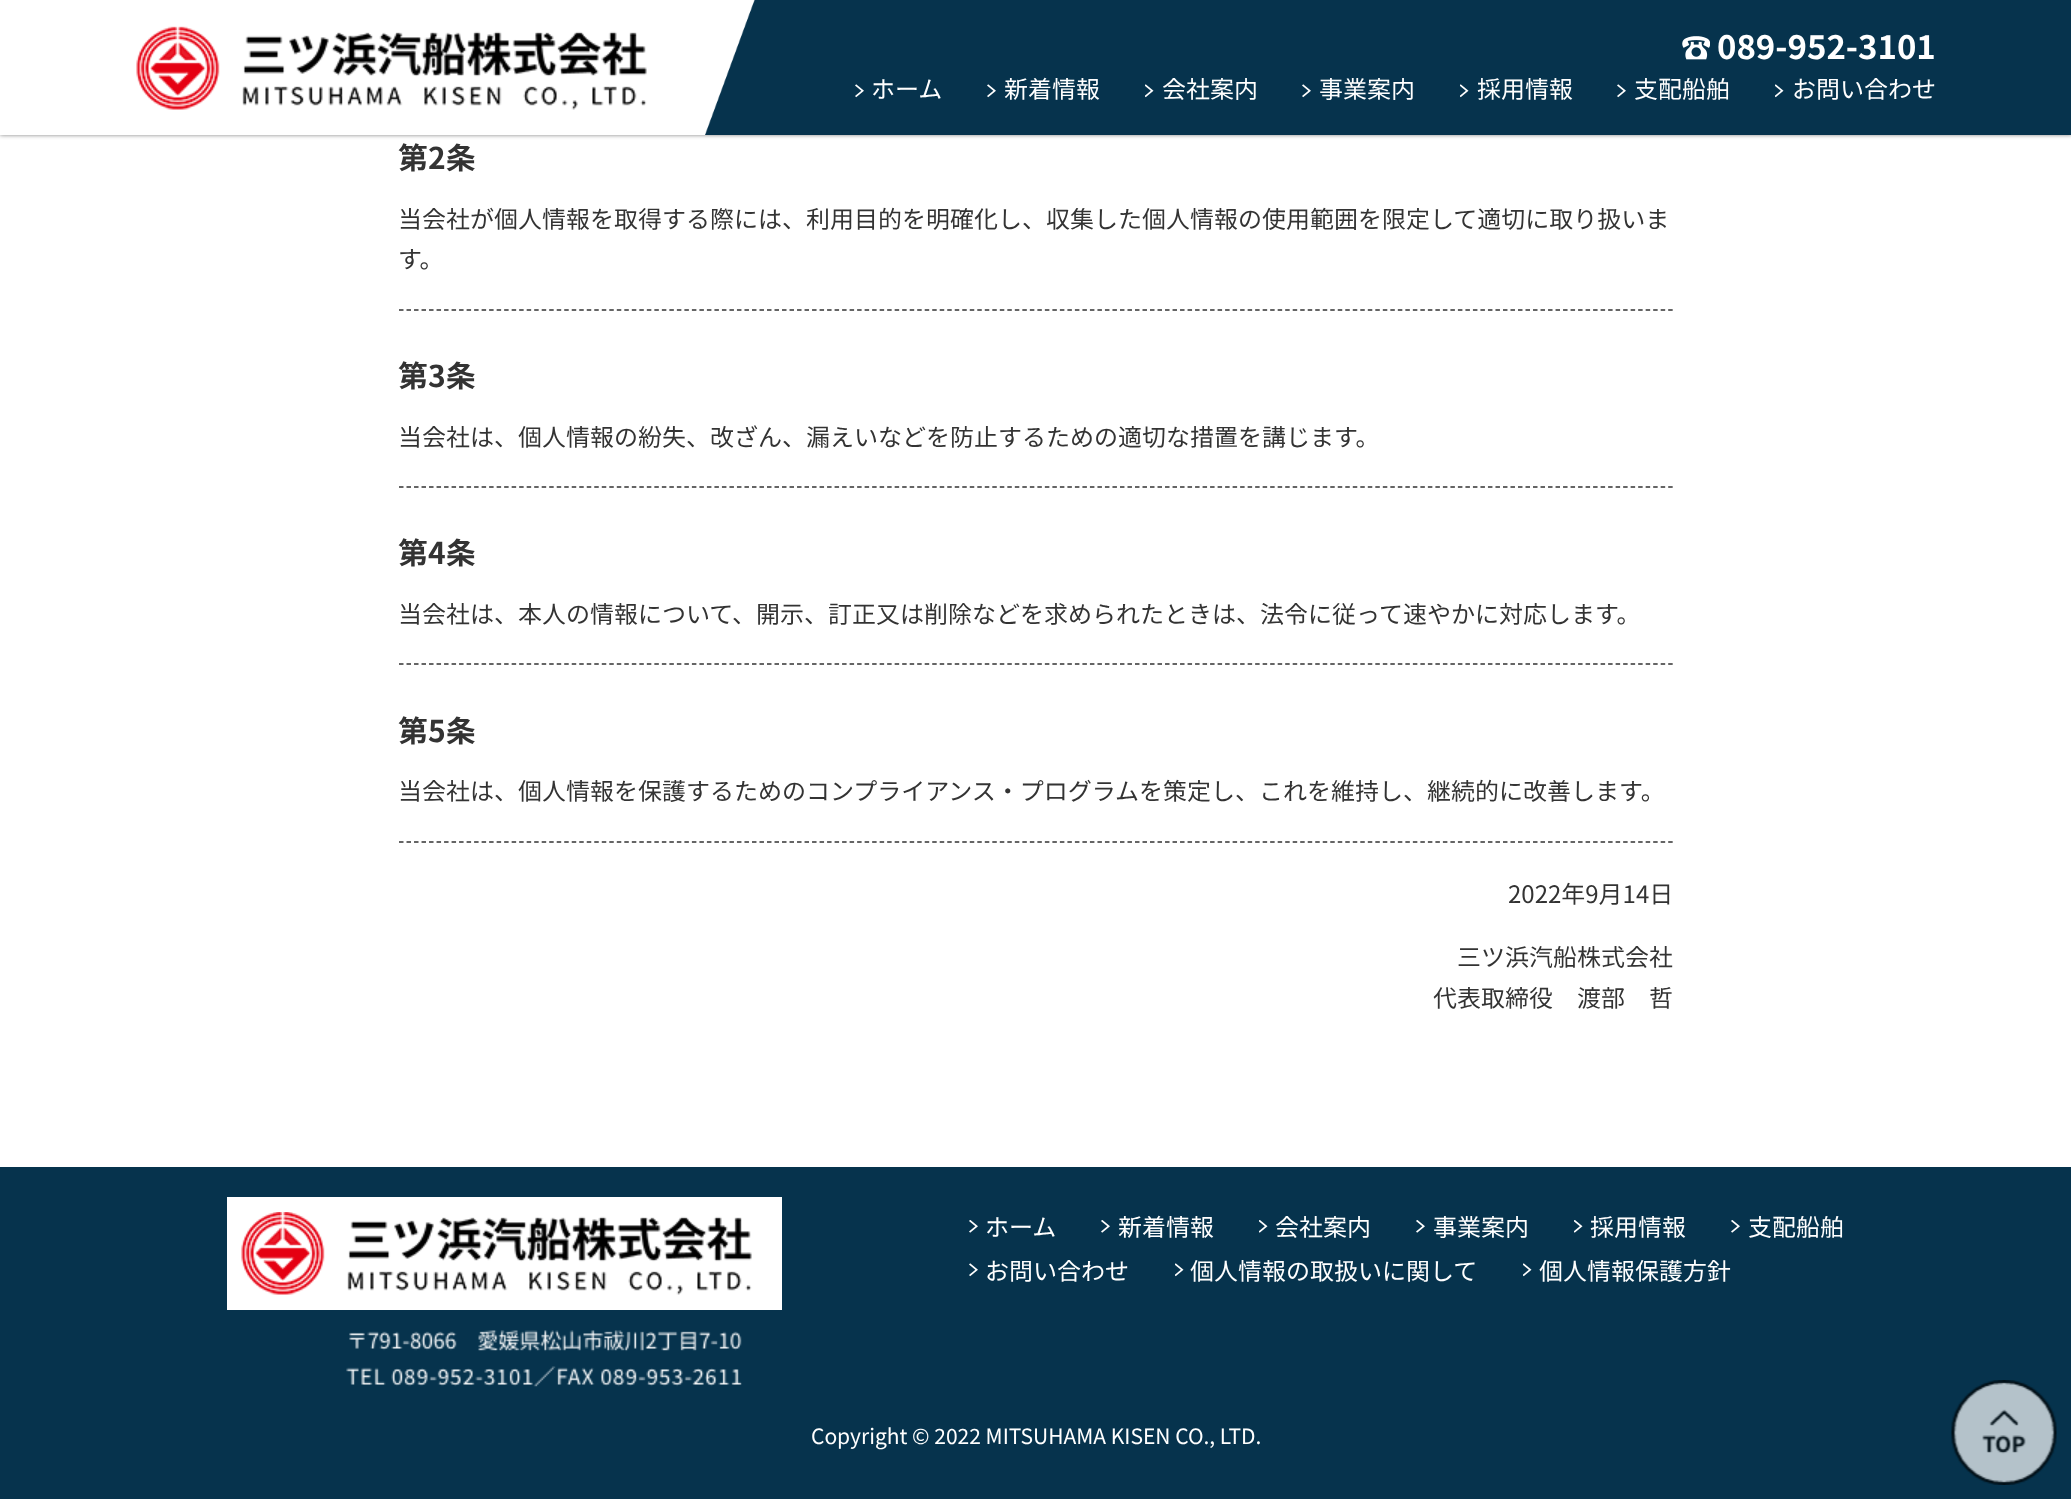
<svg xmlns="http://www.w3.org/2000/svg" width="2071" height="1499">
<style>
.a{font:bold 33px Noto Sans JP;fill:#fff}
.b{font:24px Noto Sans JP;fill:#fff}
.c{font:bold 30px Noto Sans JP;fill:#333}
.d{font:24px Noto Sans JP;fill:#333}
.e{font:21px Noto Sans JP;fill:#fff}
</style>
<rect width="100%" height="100%" fill="#fff"/>
<path fill="#00000080" filter="blur(2px)" d="M0 0h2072v135H0z"/>
<path fill="#fff" d="M0 0h755v135H0z"/>
<path fill="#06334d" d="M755 0h1316v135H755z"/>
<image href="1.png" x="136" y="26" width="511" height="84"/>
<image href="2.png" x="705" y="0" width="50" height="135"/>
<image href="3.png" x="1682" y="36" width="28" height="24"/>
<image href="4.png" x="855" y="84" width="9" height="14"/>
<image href="4.png" x="987" y="84" width="9" height="14"/>
<image href="5.png" x="1145" y="84" width="9" height="14"/>
<image href="4.png" x="1302" y="84" width="9" height="14"/>
<image href="5.png" x="1460" y="84" width="9" height="14"/>
<image href="4.png" x="1617" y="84" width="9" height="14"/>
<image href="5.png" x="1775" y="84" width="9" height="14"/>
<path fill="none" stroke="#333" stroke-width="1.5" stroke-dasharray="4.5 3.01" d="M399 310h1275"/>
<path fill="none" stroke="#333" stroke-width="1.5" stroke-dasharray="4.5 3.01" d="M399 487h1275"/>
<path fill="none" stroke="#333" stroke-width="1.5" stroke-dasharray="4.5 3.01" d="M399 664h1275"/>
<path fill="none" stroke="#333" stroke-width="1.5" stroke-dasharray="4.5 3.01" d="M399 842h1275"/>
<path fill="#06334d" d="M0 1167h2071v332H0z"/>
<path fill="#fff" d="M227 1197h555v113H227z"/>
<image href="6.png" x="241" y="1212" width="511" height="83"/>
<image href="7.png" x="349" y="1330" width="393" height="22"/>
<image href="8.png" x="346" y="1366" width="396" height="21"/>
<image href="9.png" x="969" y="1220" width="9" height="13"/>
<image href="9.png" x="1101" y="1220" width="9" height="13"/>
<image href="10.png" x="1259" y="1220" width="9" height="13"/>
<image href="9.png" x="1416" y="1220" width="9" height="13"/>
<image href="10.png" x="1574" y="1220" width="9" height="13"/>
<image href="9.png" x="1731" y="1220" width="9" height="13"/>
<image href="4.png" x="969" y="1263" width="9" height="14"/>
<image href="5.png" x="1175" y="1263" width="9" height="14"/>
<image href="5.png" x="1523" y="1263" width="9" height="14"/>
<image href="11.png" x="1951" y="1380" width="106" height="105"/>
<text class="a" x="1717" y="59">089-952-3101</text>
<text class="b" x="871" y="98">ホーム</text>
<text class="b" x="1004" y="98">新着情報</text>
<text class="b" x="1162" y="98">会社案内</text>
<text class="b" x="1319" y="98">事業案内</text>
<text class="b" x="1477" y="98">採用情報</text>
<text class="b" x="1634" y="98">支配船舶</text>
<text class="b" x="1792" y="98">お問い合わせ</text>
<text class="c" x="398" y="169">第2条</text>
<text class="d" x="398" y="228">当会社が個人情報を取得する際には、利用目的を明確化し、収集した個人情報の使用範囲を限定して適切に取り扱いま</text>
<text class="d" x="398" y="268">す。</text>
<text class="c" x="398" y="387">第3条</text>
<text class="d" x="398" y="446">当会社は、個人情報の紛失、改ざん、漏えいなどを防止するための適切な措置を講じます。</text>
<text class="c" x="398" y="564">第4条</text>
<text class="d" x="398" y="623">当会社は、本人の情報について、開示、訂正又は削除などを求められたときは、法令に従って速やかに対応します。</text>
<text class="c" x="398" y="742">第5条</text>
<text class="d" x="398" y="800">当会社は、個人情報を保護するためのコンプライアンス・プログラムを策定し、これを維持し、継続的に改善します。</text>
<text class="d" x="1508" y="903">2022年9月14日</text>
<text class="d" x="1457" y="966">三ツ浜汽船株式会社</text>
<text class="d" x="1433" y="1007">代表取締役　渡部　哲</text>
<text class="b" x="985" y="1236">ホーム</text>
<text class="b" x="1118" y="1236">新着情報</text>
<text class="b" x="1275" y="1236">会社案内</text>
<text class="b" x="1433" y="1236">事業案内</text>
<text class="b" x="1590" y="1236">採用情報</text>
<text class="b" x="1748" y="1236">支配船舶</text>
<text class="b" x="985" y="1280">お問い合わせ</text>
<text class="b" x="1190" y="1280">個人情報の取扱いに関して</text>
<text class="b" x="1539" y="1280">個人情報保護方針</text>
<text class="e" x="811" y="1444">Copyright © 2022 MITSUHAMA KISEN CO., LTD.</text>
</svg>
